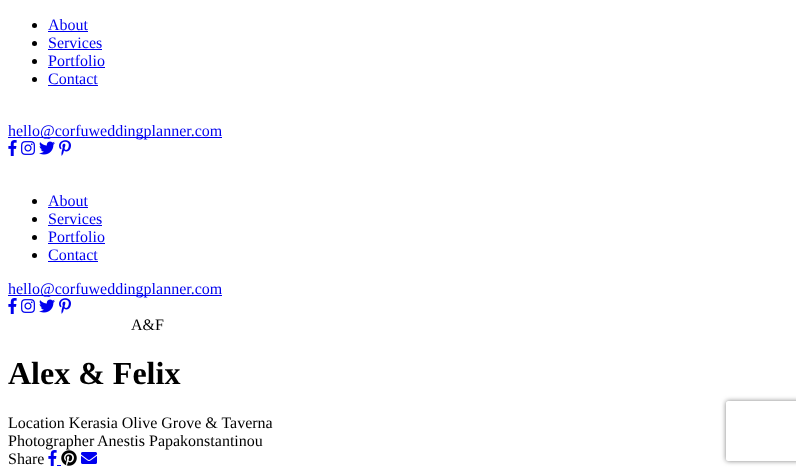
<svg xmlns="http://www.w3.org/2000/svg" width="796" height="475">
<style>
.a{font:16px Liberation Serif;fill:#00e}
.b{font:16px Liberation Serif;fill:#000}
.c{font:bold 32px Liberation Serif;fill:#000}
</style>
<defs>
<clipPath id="clip1"><path d="M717 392h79v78h-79zm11 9h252c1 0 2 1 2 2v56c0 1-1 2-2 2h-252c-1 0-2-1-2-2v-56c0-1 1-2 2-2z" clip-rule="evenodd"/></clipPath>
</defs>
<rect width="100%" height="100%" fill="#fff"/>
<circle fill="#000" cx="34.5" cy="25.5" r="2.5"/>
<path fill="#00e" d="M48 31h40v1H48z"/>
<circle fill="#000" cx="34.5" cy="43.5" r="2.5"/>
<path fill="#00e" d="M48 49h54v1H48z"/>
<circle fill="#000" cx="34.5" cy="61.5" r="2.5"/>
<path fill="#00e" d="M48 67h57v1H48z"/>
<circle fill="#000" cx="34.5" cy="79.5" r="2.5"/>
<path fill="#00e" d="M48 85h50v1H48z"/>
<path fill="#00e" d="M8 137h214v1H8z"/>
<image href="1.png" x="8" y="140" width="9" height="16"/>
<image href="2.png" x="21" y="141" width="14" height="14"/>
<image href="3.png" x="39" y="141" width="16" height="14"/>
<image href="4.png" x="59" y="140" width="12" height="16"/>
<circle fill="#000" cx="34.5" cy="201.5" r="2.5"/>
<path fill="#00e" d="M48 207h40v1H48z"/>
<circle fill="#000" cx="34.5" cy="219.5" r="2.5"/>
<path fill="#00e" d="M48 225h54v1H48z"/>
<circle fill="#000" cx="34.5" cy="237.5" r="2.5"/>
<path fill="#00e" d="M48 243h57v1H48z"/>
<circle fill="#000" cx="34.5" cy="255.5" r="2.5"/>
<path fill="#00e" d="M48 261h50v1H48z"/>
<path fill="#00e" d="M8 295h214v1H8z"/>
<image href="1.png" x="8" y="298" width="9" height="16"/>
<image href="2.png" x="21" y="299" width="14" height="14"/>
<image href="3.png" x="39" y="299" width="16" height="14"/>
<image href="4.png" x="59" y="298" width="12" height="16"/>
<image href="1.png" x="48" y="450" width="9" height="16"/>
<path fill="#00e" d="M57 465h4v1H57z"/>
<image href="5.png" x="61" y="450" width="16" height="16"/>
<image href="6.png" x="81" y="452" width="16" height="12"/>
<g clip-path="url(#clip1)">
<rect fill="#808080" filter="blur(2.5px)" x="726" y="401" width="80" height="60" rx="2"/>
</g>
<text class="a" x="48" y="30">About</text>
<text class="a" x="48" y="48">Services</text>
<text class="a" x="48" y="66">Portfolio</text>
<text class="a" x="48" y="84">Contact</text>
<text class="a" x="8" y="136">hello@corfuweddingplanner.com</text>
<text class="a" x="48" y="206">About</text>
<text class="a" x="48" y="224">Services</text>
<text class="a" x="48" y="242">Portfolio</text>
<text class="a" x="48" y="260">Contact</text>
<text class="a" x="8" y="294">hello@corfuweddingplanner.com</text>
<text class="b" x="131" y="330">A&amp;F</text>
<text class="c" x="8" y="384">Alex &amp; Felix</text>
<text class="b" x="8" y="428">Location Kerasia Olive Grove &amp; Taverna</text>
<text class="b" x="8" y="446">Photographer</text>
<text class="b" x="97" y="446">Anestis Papakonstantinou</text>
<text class="b" x="8" y="464">Share</text>
</svg>
